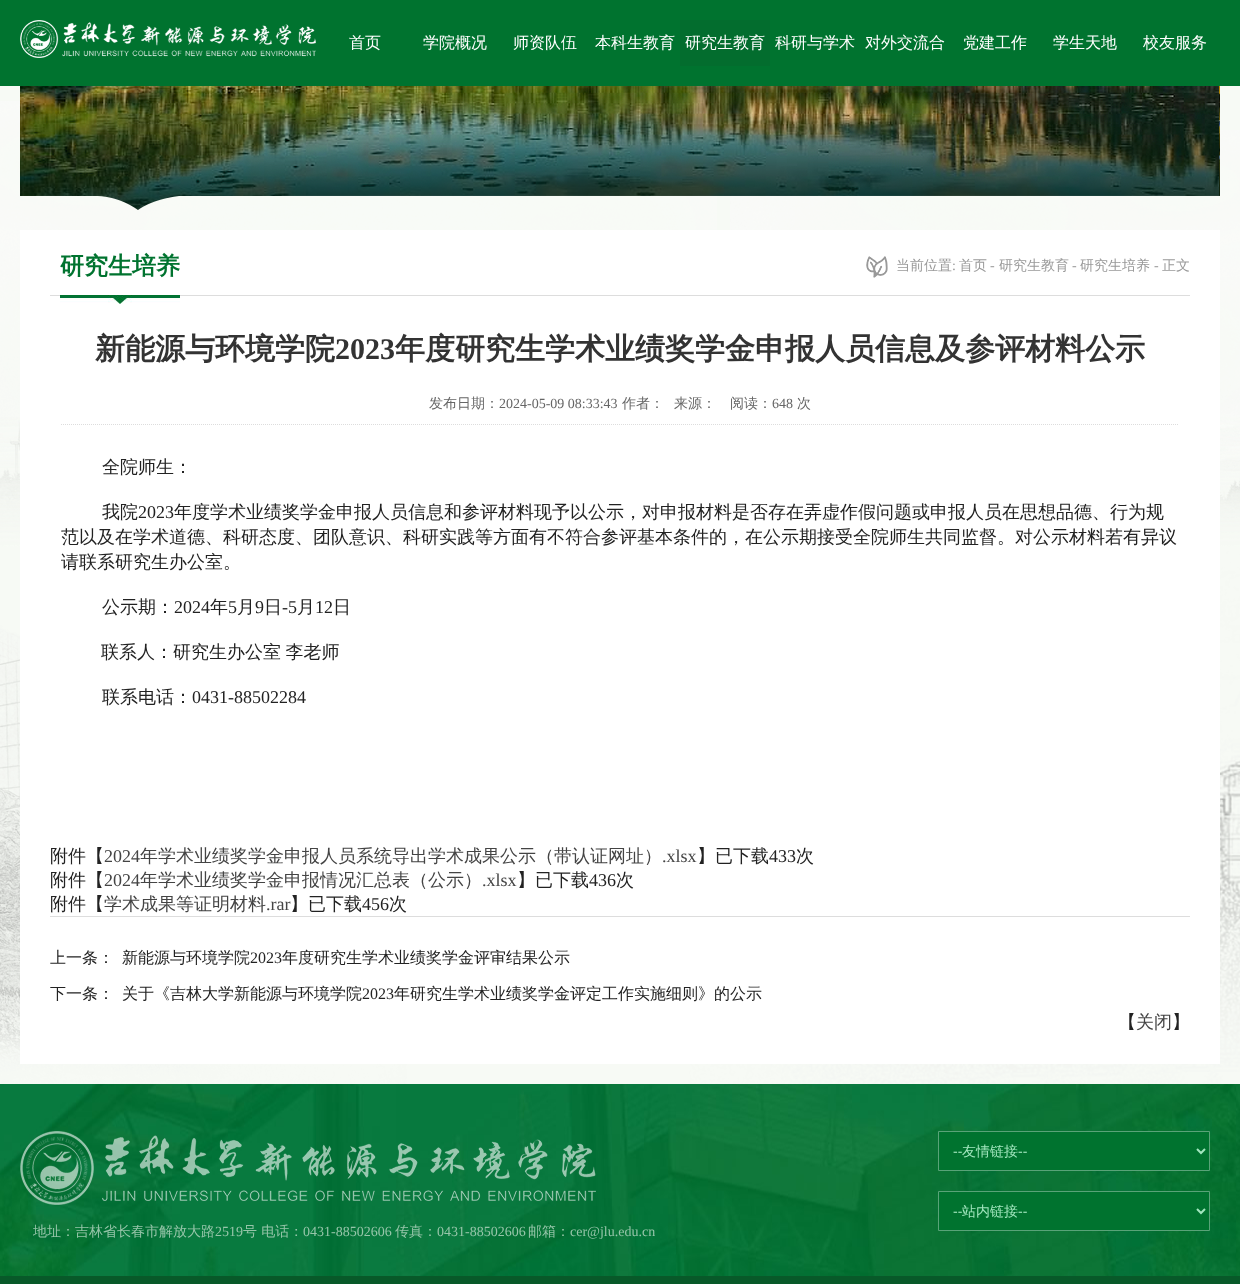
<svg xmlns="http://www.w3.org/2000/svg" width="1240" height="1284">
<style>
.a{font:500 16px WenQuanYi Zen Hei;fill:#fff}
.b{font:bold 24px WenQuanYi Zen Hei;fill:#00732f}
.c{font:500 14px WenQuanYi Zen Hei;fill:#999}
.d{font:14px Liberation Serif;fill:#999}
.e{font:bold 30px WenQuanYi Zen Hei;fill:#333}
.f{font:bold 30px Liberation Serif;fill:#333}
.g{font:500 14px WenQuanYi Zen Hei;fill:#666}
.h{font:14px Liberation Serif;fill:#666}
.i{font:500 18px WenQuanYi Zen Hei;fill:#222}
.j{font:18px Liberation Serif;fill:#222}
.k{font:18px Liberation Serif;fill:#444}
.l{font:500 18px WenQuanYi Zen Hei;fill:#444}
.m{font:500 16px WenQuanYi Zen Hei;fill:#222}
.n{font:16px Liberation Serif;fill:#222}
.o{font:14px Liberation Sans;fill:#a1e6be}
.p{font:500 14px WenQuanYi Zen Hei;fill:#a1e6be}
.q{font:500 14px WenQuanYi Zen Hei;fill:#96c5a9}
.r{font:14px Liberation Serif;fill:#96c5a9}
</style>
<rect width="100%" height="100%" fill="#fff"/>
<path fill="#00732f" d="M0 0h1240v86H0z"/>
<image href="1.png" x="20" y="20" width="296" height="38"/>
<path fill="#036d2e" d="M680 20h90v46H680z"/>
<image href="2.png" x="0" y="86" width="1240" height="998"/>
<image href="3.png" x="20" y="86" width="1200" height="124"/>
<path fill="#fff" d="M20 230h1200v834H20z"/>
<path fill="#ddd" d="M50 295h1140v1H50z"/>
<image href="4.png" x="60" y="295" width="120" height="9"/>
<image href="5.png" x="866" y="256" width="22" height="22"/>
<path fill="none" stroke="#ddd" stroke-dasharray="1 1" d="M61 424.5h1118"/>
<path fill="#ddd" d="M50 916h1140v1H50z"/>
<image href="6.png" x="0" y="1084" width="1240" height="192"/>
<path fill="#00732f" stroke="#59a378" d="M938.5 1131.5h271v39H938.5z"/>
<path fill="none" stroke="#a1e6be" stroke-width="2" d="M1197 1149l4 4l4-4"/>
<path fill="#00732f" stroke="#59a378" d="M938.5 1191.5h271v39H938.5z"/>
<path fill="none" stroke="#a1e6be" stroke-width="2" d="M1197 1209l4 4l4-4"/>
<image href="7.png" x="20" y="1131" width="576" height="74"/>
<path fill="#085929" d="M0 1276h1240v8H0z"/>
<text class="a" x="349" y="48">首页</text>
<text class="a" x="423" y="48">学院概况</text>
<text class="a" x="513" y="48">师资队伍</text>
<text class="a" x="595" y="48">本科生教育</text>
<text class="a" x="685" y="48">研究生教育</text>
<text class="a" x="775" y="48">科研与学术</text>
<text class="a" x="865" y="48">对外交流合</text>
<text class="a" x="963" y="48">党建工作</text>
<text class="a" x="1053" y="48">学生天地</text>
<text class="a" x="1143" y="48">校友服务</text>
<text class="b" x="60" y="274">研究生培养</text>
<text class="c" x="896" y="270">当前位置</text>
<text class="d" x="952" y="270">:</text>
<text class="c" x="959" y="270">首页</text>
<text class="d" x="990" y="270">-</text>
<text class="c" x="999" y="270">研究生教育</text>
<text class="d" x="1072" y="270">-</text>
<text class="c" x="1080" y="270">研究生培养</text>
<text class="d" x="1154" y="270">-</text>
<text class="c" x="1162" y="270">正文</text>
<text class="e" x="95" y="359">新能源与环境学院</text>
<text class="f" x="335" y="359">2023</text>
<text class="e" x="395" y="359">年度研究生学术业绩奖学金申报人员信息及参评材料公示</text>
<text class="g" x="429" y="408">发布日期：</text>
<text class="h" x="499" y="408">2024-05-09 08:33:43</text>
<text class="g" x="622" y="408">作者：</text>
<text class="g" x="674" y="408">来源：</text>
<text class="g" x="730" y="408">阅读：</text>
<text class="h" x="772" y="408">648</text>
<text class="g" x="797" y="408">次</text>
<text class="i" x="102" y="473">全院师生：</text>
<text class="i" x="102" y="518">我院</text>
<text class="j" x="138" y="518">2023</text>
<text class="i" x="174" y="518">年度学术业绩奖学金申报人员信息和参评材料现予以公示，对申报材料是否存在弄虚作假问题或申报人员在思想品德、行为规</text>
<text class="i" x="61" y="543">范以及在学术道德、科研态度、团队意识、科研实践等方面有不符合参评基本条件的，在公示期接受全院师生共同监督。对公示材料若有异议</text>
<text class="i" x="61" y="568">请联系研究生办公室。</text>
<text class="i" x="102" y="613">公示期：</text>
<text class="j" x="174" y="613">2024</text>
<text class="i" x="210" y="613">年</text>
<text class="j" x="228" y="613">5</text>
<text class="i" x="237" y="613">月</text>
<text class="j" x="255" y="613">9</text>
<text class="i" x="264" y="613">日</text>
<text class="j" x="282" y="613">-5</text>
<text class="i" x="297" y="613">月</text>
<text class="j" x="315" y="613">12</text>
<text class="i" x="333" y="613">日</text>
<text class="i" x="101" y="658" word-spacing="-1">联系人：研究生办公室 李老师</text>
<text class="i" x="102" y="703">联系电话：</text>
<text class="j" x="192" y="703">0431-88502284</text>
<text class="i" x="50" y="862">附件【</text>
<text class="k" x="104" y="862">2024</text>
<text class="l" x="140" y="862">年学术业绩奖学金申报人员系统导出学术成果公示（带认证网址）</text>
<text class="k" x="662" y="862">.xlsx</text>
<text class="i" x="697" y="862">】已下载</text>
<text class="j" x="769" y="862">433</text>
<text class="i" x="796" y="862">次</text>
<text class="i" x="50" y="886">附件【</text>
<text class="k" x="104" y="886">2024</text>
<text class="l" x="140" y="886">年学术业绩奖学金申报情况汇总表（公示）</text>
<text class="k" x="482" y="886">.xlsx</text>
<text class="i" x="517" y="886">】已下载</text>
<text class="j" x="589" y="886">436</text>
<text class="i" x="616" y="886">次</text>
<text class="i" x="50" y="910">附件【</text>
<text class="l" x="104" y="910">学术成果等证明材料</text>
<text class="k" x="266" y="910">.rar</text>
<text class="i" x="290" y="910">】已下载</text>
<text class="j" x="362" y="910">456</text>
<text class="i" x="389" y="910">次</text>
<text class="m" x="50" y="963">上一条：</text>
<text class="m" x="122" y="963">新能源与环境学院</text>
<text class="n" x="250" y="963">2023</text>
<text class="m" x="282" y="963">年度研究生学术业绩奖学金评审结果公示</text>
<text class="m" x="50" y="999">下一条：</text>
<text class="m" x="122" y="999">关于《吉林大学新能源与环境学院</text>
<text class="n" x="362" y="999">2023</text>
<text class="m" x="394" y="999">年研究生学术业绩奖学金评定工作实施细则》的公示</text>
<text class="i" x="1118" y="1028">【</text>
<text class="l" x="1136" y="1028">关闭</text>
<text class="i" x="1172" y="1028">】</text>
<text class="o" x="953" y="1156">--</text>
<text class="p" x="962" y="1156">友情链接</text>
<text class="o" x="1018" y="1156">--</text>
<text class="o" x="953" y="1216">--</text>
<text class="p" x="962" y="1216">站内链接</text>
<text class="o" x="1018" y="1216">--</text>
<text class="q" x="33" y="1236">地址：吉林省长春市解放大路</text>
<text class="r" x="215" y="1236">2519</text>
<text class="q" x="243" y="1236">号 电话：</text>
<text class="r" x="303" y="1236">0431-88502606</text>
<text class="q" x="395" y="1236">传真：</text>
<text class="r" x="437" y="1236">0431-88502606</text>
<text class="q" x="528" y="1236">邮箱：</text>
<text class="r" x="570" y="1236">cer@jlu.edu.cn</text>
</svg>
